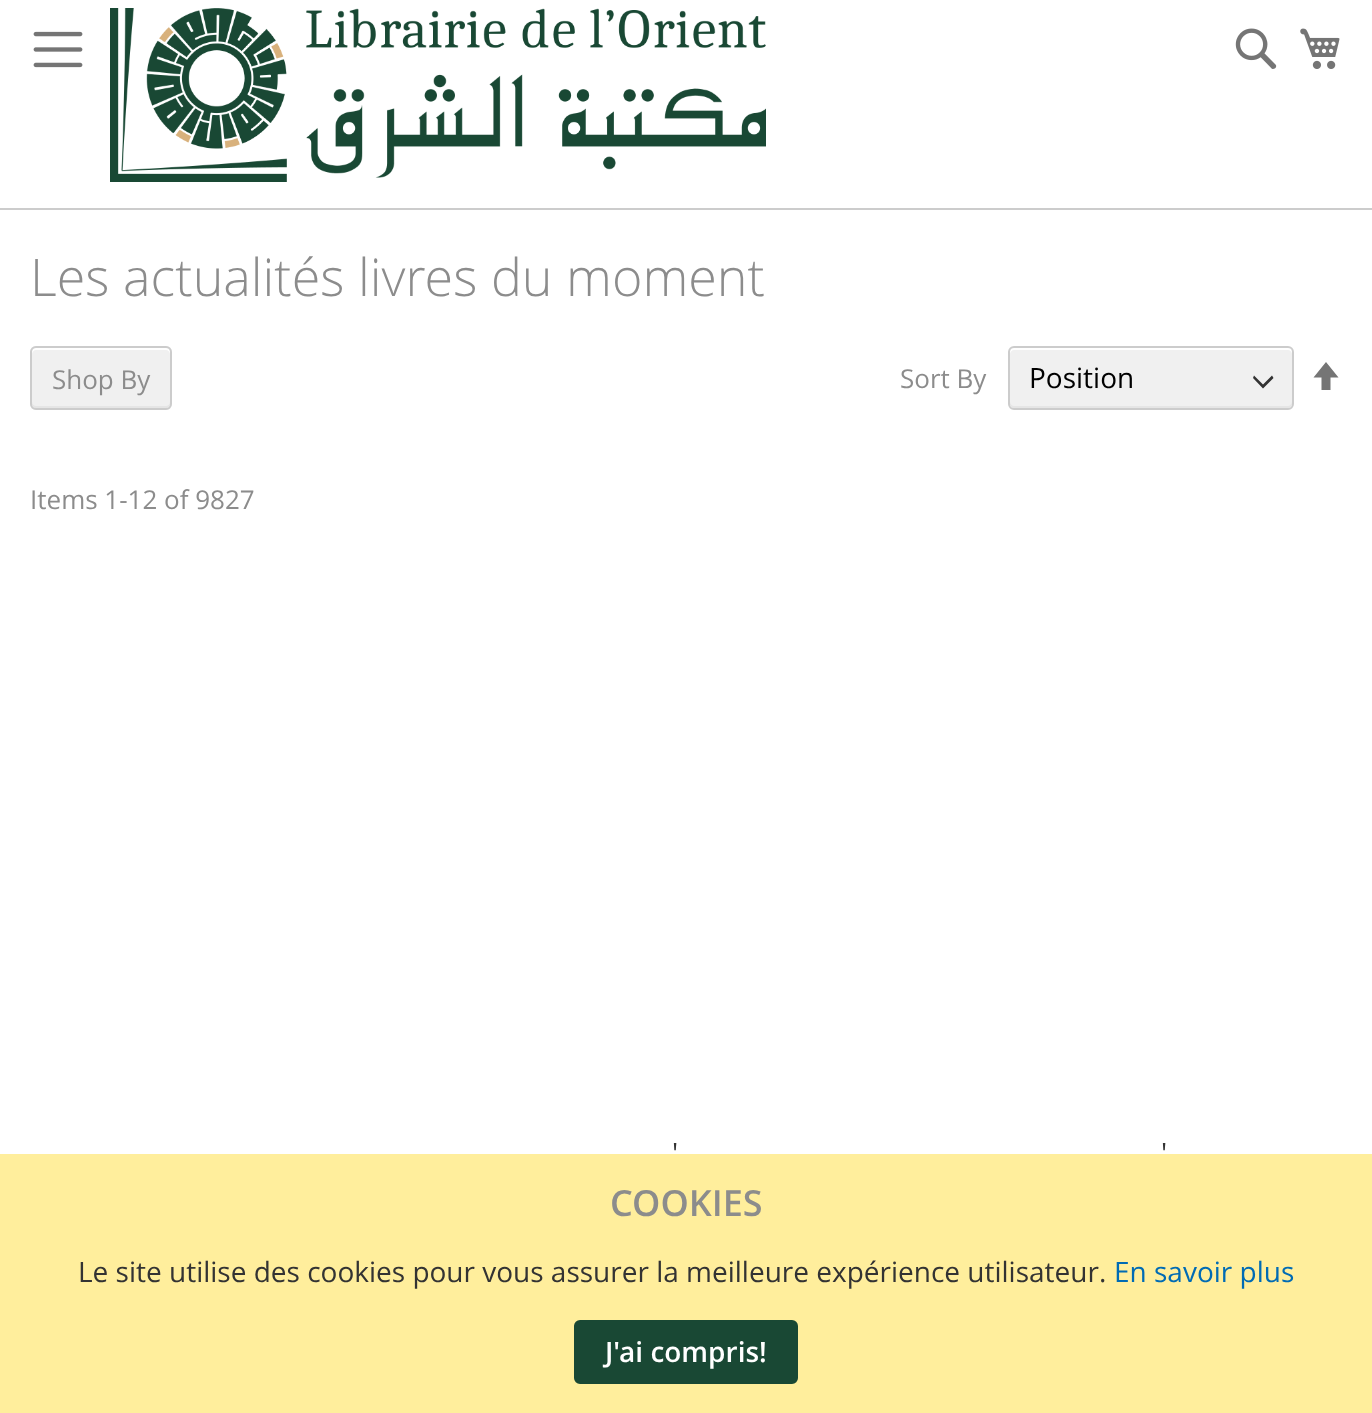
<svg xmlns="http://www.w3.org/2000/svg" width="1372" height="1413">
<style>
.a{font:300 52px Open Sans;fill:#8c8c8c}
.b{font:26px Open Sans;fill:#8c8c8c}
.c{font:28px Open Sans;fill:#000}
.d{font:28px Open Sans;fill:#333}
.e{font:600 36px Open Sans;fill:#8c8c8c}
.f{font:28px Open Sans;fill:#006bb4}
.g{font:600 28px Open Sans;fill:#fff}
</style>
<rect width="100%" height="100%" fill="#fff"/>
<path fill="#ccc" d="M0 208h1372v2H0z"/>
<image href="1.png" x="33" y="31" width="50" height="37"/>
<image href="2.png" x="110" y="8" width="656" height="174"/>
<image href="3.png" x="1235" y="28" width="42" height="41"/>
<image href="4.png" x="1300" y="28" width="40" height="41"/>
<rect fill="#f0f0f0" x="1010" y="348" width="282" height="60" rx="4"/>
<path fill="#333" fill-rule="evenodd" d="M1263.5 388l10-10l-1.5-2.5l-9 9l-9-9l-1 2.5l10 10.5z"/>
<path fill="#cccccc4d" d="M1010 402v2c0 2 2 4 4 4h274c2 0 4-2 4-4v-2c0 2-2 4-4 4h-274c-2 0-4-2-4-4z"/>
<path fill="#fff" d="M1014 350h274c2 0 4 2 4 4v-2c0-2-2-4-4-4h-274c-2 0-4 2-4 4v2c0-2 2-4 4-4z"/>
<rect fill="none" stroke="#ccc" stroke-width="2" x="1009" y="347" width="284" height="62" rx="5"/>
<path fill="#757575" d="M1326 362l-12.5 15.5h8v12.5h9v-12.5h8z"/>
<rect fill="#f0f0f0" x="30" y="346" width="142" height="64" rx="6"/>
<path fill="#e5e5e5" d="M32 402v2c0 2 2 4 4 4h130c2 0 4-2 4-4v-2c0 2-2 4-4 4h-130c-2 0-4-2-4-4z"/>
<path fill="#fff" d="M36 350h130c2 0 4 2 4 4v-2c0-2-2-4-4-4h-130c-2 0-4 2-4 4v2c0-2 2-4 4-4z"/>
<rect fill="none" stroke="#ccc" stroke-width="2" x="31" y="347" width="140" height="62" rx="5"/>
<path fill="#ffee9c" d="M0 1154h1372v259H0z"/>
<rect fill="#194834" stroke="#194834" stroke-width="2" x="575" y="1321" width="222" height="62" rx="5"/>
<text class="a" x="30" y="296">Les actualités livres du moment</text>
<text class="b" x="900" y="388">Sort By</text>
<text class="c" x="1029" y="388">Position</text>
<text class="b" x="30" y="509">Items 1-12 of 9827</text>
<text class="d" x="672" y="1163">'</text>
<text class="d" x="1161" y="1163">'</text>
<text class="b" x="52" y="389">Shop By</text>
<text class="e" x="610" y="1216">COOKIES</text>
<text class="d" x="78" y="1282">Le site utilise des cookies pour vous assurer la meilleure expérience utilisateur.</text>
<text class="f" x="1114" y="1282">En savoir plus</text>
<text class="g" x="605" y="1362">J'ai compris!</text>
</svg>
